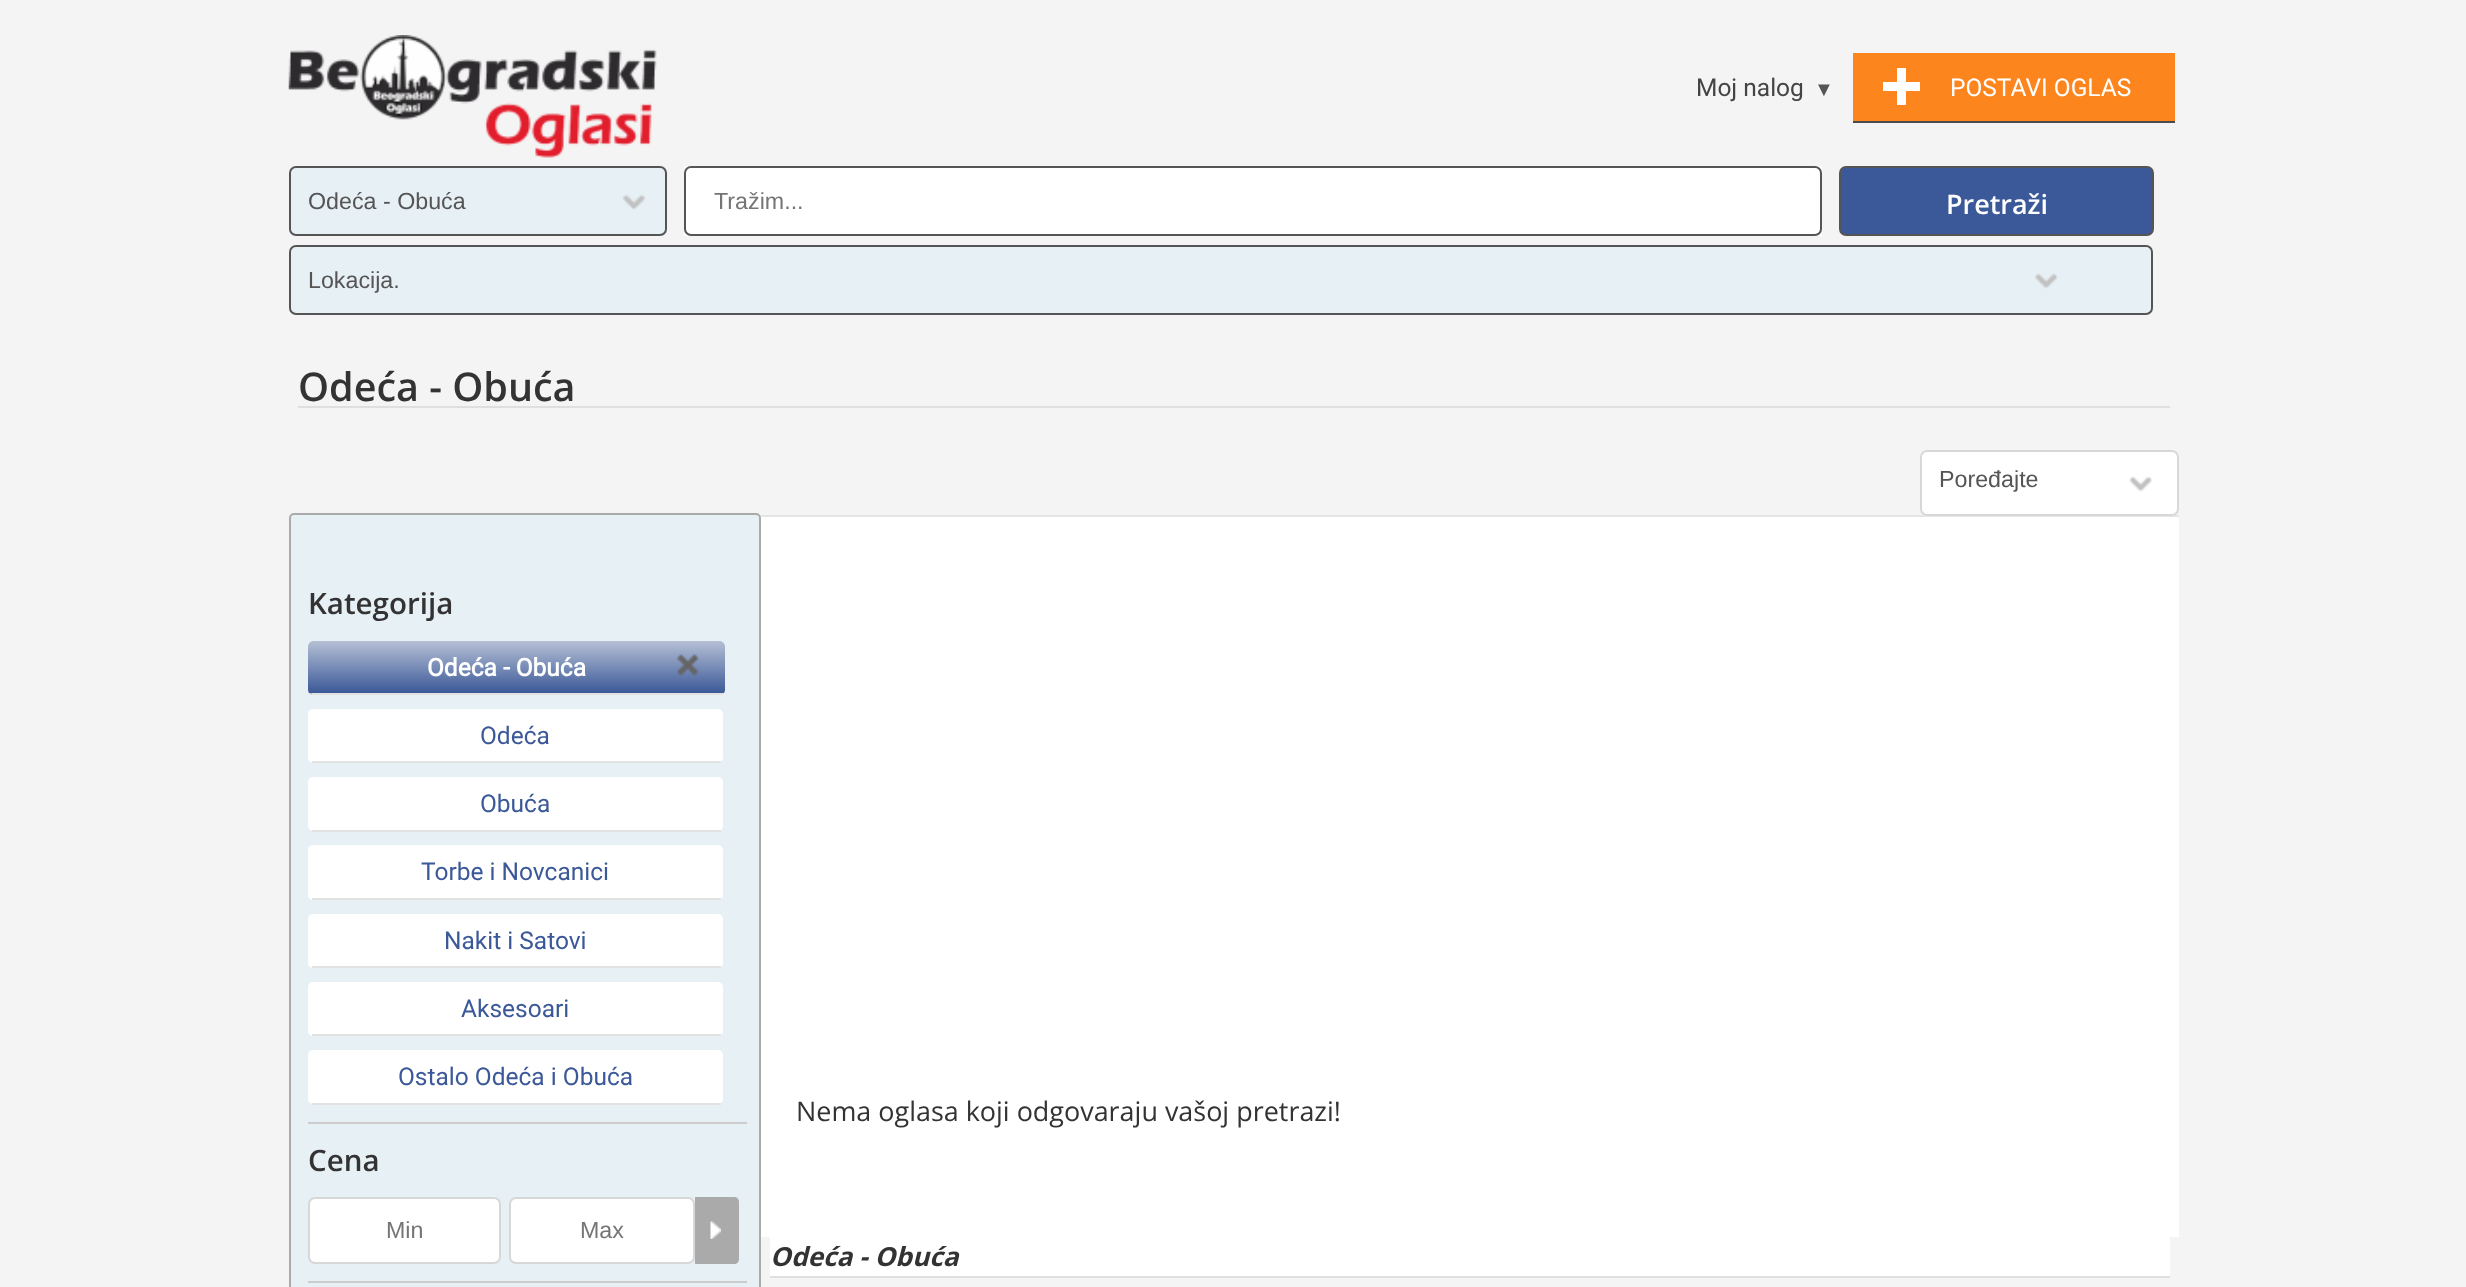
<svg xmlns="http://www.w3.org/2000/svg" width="2466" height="1287">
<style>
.a{font:24.5px Roboto;fill:#444}
.b{font:20px Liberation Sans;fill:#555}
.c{font:24.5px Roboto;fill:#fff}
.d{font:23.25px Liberation Sans;fill:#555}
.e{font:23.25px Liberation Sans;fill:#757575}
.f{font:600 26.95px Open Sans;fill:#fff}
.g{font:600 39.5px Open Sans;fill:#333}
.h{font:600 29.5px Open Sans;fill:#333}
.i{font:bold 24.5px Roboto;fill:#fff}
.j{font:24.5px Roboto;fill:#3b5998}
.k{font:26.95px Open Sans;fill:#333}
.l{font:italic bold 26.25px Open Sans;fill:#333}
</style>
<defs>
<clipPath id="clip1"><rect x="308" y="641" width="417" height="54" rx="5"/></clipPath>
<linearGradient id="g1" gradientUnits="userSpaceOnUse" x1="516" y1="693" x2="516" y2="614"><stop offset="0" stop-color="#3b5998"/><stop offset="1" stop-color="#f5f5f5"/></linearGradient>
<linearGradient id="g2" gradientUnits="userSpaceOnUse" x1="516" y1="746" x2="516" y2="667"><stop offset="0" stop-color="#3b5998"/><stop offset="1" stop-color="#f5f5f5"/></linearGradient>
</defs>
<rect width="100%" height="100%" fill="#f4f4f4"/>
<image href="1.png" x="288" y="35" width="369" height="123"/>
<path fill="#fd851d" d="M1853 53h322v68H1853z"/>
<path fill="#4b4b4b" d="M1853 121h322v2H1853z"/>
<path fill="#fff" d="M1897 68h9v37H1897z"/>
<path fill="#fff" d="M1883 82h37v9H1883z"/>
<rect fill="#e7f0f5" x="289" y="166" width="378" height="70" rx="7"/>
<image href="2.png" x="622" y="194" width="24" height="16"/>
<rect fill="none" stroke="#555" stroke-width="2" x="290" y="167" width="376" height="68" rx="6"/>
<path fill="#fff" d="M684 166h1138v70H684z"/>
<rect fill="none" stroke="#555" stroke-width="2" x="685" y="167" width="1136" height="68" rx="6"/>
<rect fill="#3b5998" stroke="#555" stroke-width="2" x="1840" y="167" width="313" height="68" rx="6"/>
<rect fill="#e7f0f5" x="289" y="245" width="1864" height="70" rx="7"/>
<image href="3.png" x="2035" y="273" width="23" height="16"/>
<rect fill="none" stroke="#555" stroke-width="2" x="290" y="246" width="1862" height="68" rx="6"/>
<path fill="#dfdfdd" d="M298 406h1872v2H298z"/>
<rect fill="#e7f0f5" stroke="#aaa" stroke-width="2" x="290" y="514" width="470" height="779" rx="4"/>
<rect fill="#fff" x="308" y="641" width="417" height="54" rx="5"/>
<g clip-path="url(#clip1)">
<path fill="url(#g1)" d="M313 641h407c3 0 5 2 5 5v47h-417v-47c0-3 2-5 5-5z"/>
<path fill="url(#g2)" d="M308 693h417v2H308z"/>
</g>
<path fill="#e2e2e2" d="M312 693h411v2H312z"/>
<image href="4.png" x="677" y="654" width="22" height="22"/>
<rect fill="#fff" x="308" y="709" width="415" height="54" rx="5"/>
<path fill="#e2e2e2" d="M312 761h409v2H312z"/>
<rect fill="#fff" x="308" y="777" width="415" height="54" rx="5"/>
<path fill="#e2e2e2" d="M312 830h409v2H312z"/>
<rect fill="#fff" x="308" y="845" width="415" height="55" rx="5"/>
<path fill="#e2e2e2" d="M312 898h409v2H312z"/>
<rect fill="#fff" x="308" y="914" width="415" height="54" rx="5"/>
<path fill="#e2e2e2" d="M312 966h409v2H312z"/>
<rect fill="#fff" x="308" y="982" width="415" height="54" rx="5"/>
<path fill="#e2e2e2" d="M312 1034h409v2H312z"/>
<rect fill="#fff" x="308" y="1050" width="415" height="54" rx="5"/>
<path fill="#e2e2e2" d="M312 1103h409v2H312z"/>
<path fill="#ccc" d="M308 1122h439v2H308z"/>
<rect fill="#fff" stroke="#d7d7d7" stroke-width="2" x="309" y="1198" width="191" height="65" rx="6"/>
<rect fill="#fff" stroke="#d7d7d7" stroke-width="2" x="510" y="1198" width="184" height="65" rx="6"/>
<path fill="#aaa" d="M695 1197h39c3 0 5 2 5 5v57c0 3-2 5-5 5h-39z"/>
<image href="5.png" x="710" y="1221" width="11" height="18"/>
<path fill="#ccc" d="M308 1281h439v2H308z"/>
<path fill="#e5e5e5" d="M761 515h1418v2H761z"/>
<rect fill="#fff" x="1920" y="450" width="259" height="66" rx="7"/>
<image href="6.png" x="2129" y="476" width="24" height="16"/>
<rect fill="none" stroke="#d7d7d7" stroke-width="2" x="1921" y="451" width="257" height="64" rx="6"/>
<path fill="#fff" d="M761 517h1418v720H761z"/>
<path fill="#fff" d="M770 1237h1400v39H770z"/>
<path fill="#dfdfdd" d="M770 1276h1400v2H770z"/>
<text class="a" x="1696" y="96">Moj nalog</text>
<text class="b" x="1814" y="96">▼</text>
<text class="c" x="1950" y="96">POSTAVI OGLAS</text>
<text class="d" x="308" y="209">Odeća - Obuća</text>
<text class="e" x="714" y="209">Tražim...</text>
<text class="f" x="1946" y="214">Pretraži</text>
<text class="d" x="308" y="288">Lokacija.</text>
<text class="g" x="298" y="401">Odeća - Obuća</text>
<text class="h" x="308" y="614">Kategorija</text>
<text class="i" x="427" y="676">Odeća - Obuća</text>
<text class="j" x="480" y="744">Odeća</text>
<text class="j" x="480" y="812">Obuća</text>
<text class="j" x="421" y="880">Torbe i Novcanici</text>
<text class="j" x="444" y="949">Nakit i Satovi</text>
<text class="j" x="461" y="1017">Aksesoari</text>
<text class="j" x="398" y="1085">Ostalo Odeća i Obuća</text>
<text class="h" x="308" y="1171">Cena</text>
<text class="e" x="386" y="1238">Min</text>
<text class="e" x="580" y="1238">Max</text>
<text class="d" x="1939" y="487">Poređajte</text>
<text class="k" x="796" y="1121">Nema oglasa koji odgovaraju vašoj pretrazi!</text>
<text class="l" x="770" y="1266">Odeća - Obuća</text>
</svg>
